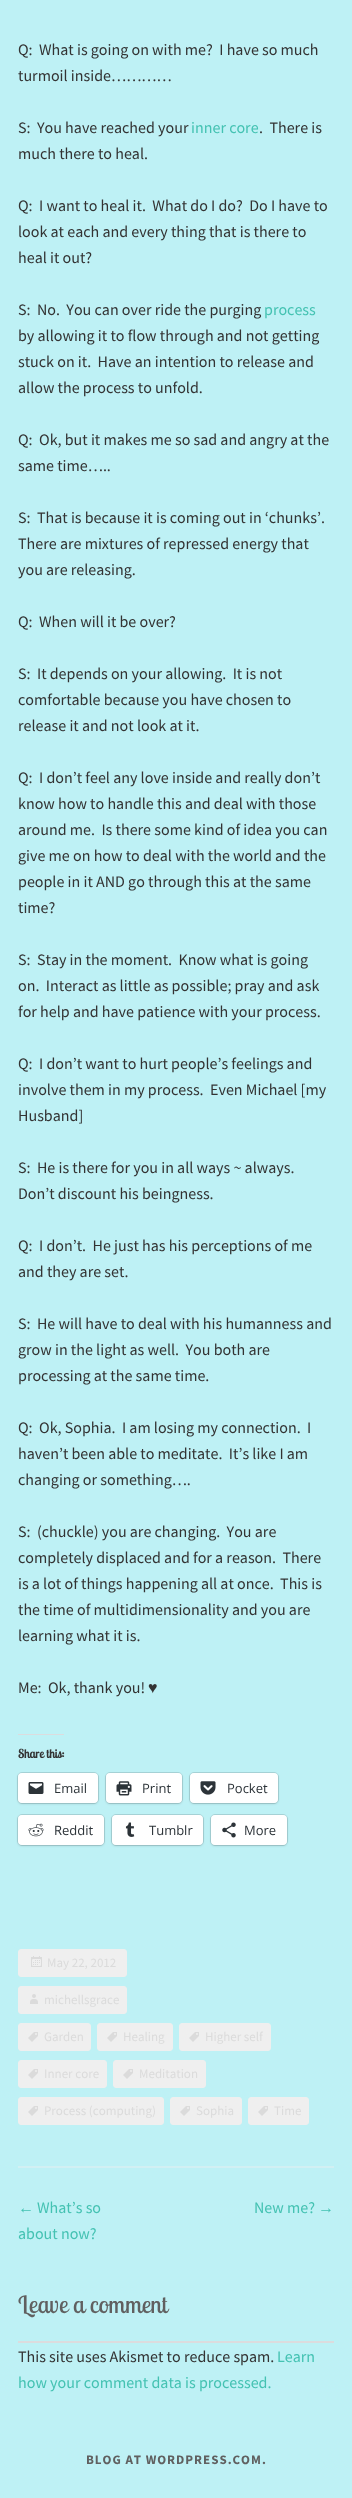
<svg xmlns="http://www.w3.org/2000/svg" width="352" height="2498">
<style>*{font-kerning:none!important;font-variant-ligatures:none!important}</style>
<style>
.a{font:16px Source Sans Pro;fill:#333}
.b{font:16px Source Sans Pro;fill:#44c2b2}
.c{font:16px Liberation Sans;fill:#333}
.d{font:bold 12px Lobster Two;fill:#333}
.e{font:13px Open Sans;fill:#2c3338}
.f{font:13px Source Sans Pro;fill:#dbdbdb}
.g{font:16px Liberation Sans;fill:#44c2b2}
.h{font:24px Lobster Two;fill:#606060}
.i{font:bold 13px Source Sans Pro;letter-spacing:1px;fill:#606060}
</style>
<rect width="100%" height="100%" fill="#bef1f5"/>
<path fill="#d2f0f3" d="M18 2166h316v2H18z"/>
<path fill="#dcdcde" d="M18 1734h46v1H18z"/>
<rect fill="none" stroke="#a7d4d8" x="17.5" y="1772.5" width="81" height="31" rx="4.5"/>
<rect fill="#0000001f" filter="blur(1px)" x="18" y="1774" width="80" height="30" rx="4"/>
<rect fill="#fff" x="18" y="1773" width="80" height="30" rx="4"/>
<image href="1.png" x="28" y="1782" width="16" height="12"/>
<rect fill="none" stroke="#a7d4d8" x="105.5" y="1772.5" width="77" height="31" rx="4.5"/>
<rect fill="#0000001f" filter="blur(1px)" x="106" y="1774" width="76" height="30" rx="4"/>
<rect fill="#fff" x="106" y="1773" width="76" height="30" rx="4"/>
<image href="2.png" x="116" y="1781" width="16" height="15"/>
<rect fill="none" stroke="#a7d4d8" x="189.5" y="1772.5" width="89" height="31" rx="4.5"/>
<rect fill="#0000001f" filter="blur(1px)" x="190" y="1774" width="88" height="30" rx="4"/>
<rect fill="#fff" x="190" y="1773" width="88" height="30" rx="4"/>
<image href="3.png" x="200" y="1781" width="16" height="14"/>
<rect fill="none" stroke="#a7d4d8" x="17.5" y="1814.5" width="87" height="31" rx="4.5"/>
<rect fill="#0000001f" filter="blur(1px)" x="18" y="1816" width="86" height="30" rx="4"/>
<rect fill="#fff" x="18" y="1815" width="86" height="30" rx="4"/>
<image href="4.png" x="28" y="1823" width="16" height="14"/>
<rect fill="none" stroke="#a7d4d8" x="111.5" y="1814.5" width="92" height="31" rx="4.5"/>
<rect fill="#0000001f" filter="blur(1px)" x="112" y="1816" width="91" height="30" rx="4"/>
<rect fill="#fff" x="112" y="1815" width="91" height="30" rx="4"/>
<image href="5.png" x="125" y="1822" width="10" height="15"/>
<rect fill="none" stroke="#a7d4d8" x="210.5" y="1814.5" width="77" height="31" rx="4.5"/>
<rect fill="#0000001f" filter="blur(1px)" x="211" y="1816" width="76" height="30" rx="4"/>
<rect fill="#fff" x="211" y="1815" width="76" height="30" rx="4"/>
<image href="6.png" x="222" y="1822" width="14" height="16"/>
<rect fill="#efefef" stroke="#efefef" x="18.5" y="1949.5" width="108" height="27" rx="2.5"/>
<image href="7.png" x="31" y="1956" width="11" height="11"/>
<rect fill="#efefef" stroke="#efefef" x="18.5" y="1986.5" width="108" height="27" rx="2.5"/>
<image href="8.png" x="30" y="1994" width="8" height="10"/>
<rect fill="#efefef" stroke="#efefef" x="18.5" y="2023.5" width="72" height="27" rx="2.5"/>
<image href="9.png" x="28" y="2032" width="10" height="10"/>
<rect fill="#efefef" stroke="#efefef" x="97.5" y="2023.5" width="75" height="27" rx="2.5"/>
<image href="9.png" x="107" y="2032" width="10" height="10"/>
<rect fill="#efefef" stroke="#efefef" x="179.5" y="2023.5" width="91" height="27" rx="2.5"/>
<image href="9.png" x="189" y="2032" width="10" height="10"/>
<rect fill="#efefef" stroke="#efefef" x="18.5" y="2060.5" width="88" height="27" rx="2.5"/>
<image href="9.png" x="28" y="2069" width="10" height="10"/>
<rect fill="#efefef" stroke="#efefef" x="113.5" y="2060.5" width="92" height="27" rx="2.5"/>
<image href="9.png" x="123" y="2069" width="10" height="10"/>
<rect fill="#efefef" stroke="#efefef" x="18.5" y="2097.5" width="145" height="27" rx="2.5"/>
<image href="9.png" x="28" y="2106" width="10" height="10"/>
<rect fill="#efefef" stroke="#efefef" x="170.5" y="2097.5" width="71" height="27" rx="2.5"/>
<image href="9.png" x="180" y="2106" width="10" height="10"/>
<rect fill="#efefef" stroke="#efefef" x="248.5" y="2097.5" width="60" height="27" rx="2.5"/>
<image href="9.png" x="258" y="2106" width="10" height="10"/>
<path fill="#dcdcde" d="M18 2341h316v2H18z"/>
<text class="a" xml:space="preserve" x="18" y="55">Q:  What is going on with me?  I have so much</text>
<text class="a" x="18" y="81">turmoil inside…………</text>
<text class="a" xml:space="preserve" x="18" y="133">S:  You have reached your</text>
<text class="b" x="191" y="133">inner core</text>
<text class="a" xml:space="preserve" x="259" y="133">.  There is</text>
<text class="a" x="18" y="159">much there to heal.</text>
<text class="a" xml:space="preserve" x="18" y="211">Q:  I want to heal it.  What do I do?  Do I have to</text>
<text class="a" x="18" y="237">look at each and every thing that is there to</text>
<text class="a" x="18" y="263">heal it out?</text>
<text class="a" xml:space="preserve" x="18" y="315">S:  No.  You can over ride the purging</text>
<text class="b" x="264" y="315">process</text>
<text class="a" x="18" y="341">by allowing it to flow through and not getting</text>
<text class="a" xml:space="preserve" x="18" y="367">stuck on it.  Have an intention to release and</text>
<text class="a" x="18" y="393">allow the process to unfold.</text>
<text class="a" xml:space="preserve" x="18" y="445">Q:  Ok, but it makes me so sad and angry at the</text>
<text class="a" x="18" y="471">same time…..</text>
<text class="a" xml:space="preserve" x="18" y="523">S:  That is because it is coming out in ‘chunks’.</text>
<text class="a" x="18" y="549">There are mixtures of repressed energy that</text>
<text class="a" x="18" y="575">you are releasing.</text>
<text class="a" xml:space="preserve" x="18" y="627">Q:  When will it be over?</text>
<text class="a" xml:space="preserve" x="18" y="679">S:  It depends on your allowing.  It is not</text>
<text class="a" x="18" y="705">comfortable because you have chosen to</text>
<text class="a" x="18" y="731">release it and not look at it.</text>
<text class="a" xml:space="preserve" x="18" y="783">Q:  I don’t feel any love inside and really don’t</text>
<text class="a" x="18" y="809">know how to handle this and deal with those</text>
<text class="a" xml:space="preserve" x="18" y="835">around me.  Is there some kind of idea you can</text>
<text class="a" x="18" y="861">give me on how to deal with the world and the</text>
<text class="a" x="18" y="887">people in it AND go through this at the same</text>
<text class="a" x="18" y="913">time?</text>
<text class="a" xml:space="preserve" x="18" y="965">S:  Stay in the moment.  Know what is going</text>
<text class="a" xml:space="preserve" x="18" y="991">on.  Interact as little as possible; pray and ask</text>
<text class="a" x="18" y="1017">for help and have patience with your process.</text>
<text class="a" xml:space="preserve" x="18" y="1069">Q:  I don’t want to hurt people’s feelings and</text>
<text class="a" xml:space="preserve" x="18" y="1095">involve them in my process.  Even Michael [my</text>
<text class="a" x="18" y="1121">Husband]</text>
<text class="a" xml:space="preserve" x="18" y="1173">S:  He is there for you in all ways ~ always.</text>
<text class="a" x="18" y="1199">Don’t discount his beingness.</text>
<text class="a" xml:space="preserve" x="18" y="1251">Q:  I don’t.  He just has his perceptions of me</text>
<text class="a" x="18" y="1277">and they are set.</text>
<text class="a" xml:space="preserve" x="18" y="1329">S:  He will have to deal with his humanness and</text>
<text class="a" xml:space="preserve" x="18" y="1355">grow in the light as well.  You both are</text>
<text class="a" x="18" y="1381">processing at the same time.</text>
<text class="a" xml:space="preserve" x="18" y="1433">Q:  Ok, Sophia.  I am losing my connection.  I</text>
<text class="a" xml:space="preserve" x="18" y="1459">haven’t been able to meditate.  It’s like I am</text>
<text class="a" x="18" y="1485">changing or something….</text>
<text class="a" xml:space="preserve" x="18" y="1537">S:  (chuckle) you are changing.  You are</text>
<text class="a" xml:space="preserve" x="18" y="1563">completely displaced and for a reason.  There</text>
<text class="a" xml:space="preserve" x="18" y="1589">is a lot of things happening all at once.  This is</text>
<text class="a" x="18" y="1615">the time of multidimensionality and you are</text>
<text class="a" x="18" y="1641">learning what it is.</text>
<text class="a" xml:space="preserve" x="18" y="1693">Me:  Ok, thank you!</text>
<text class="c" x="148" y="1693">♥</text>
<text class="d" x="18" y="1758">Share this:</text>
<text class="e" x="54" y="1793">Email</text>
<text class="e" x="142" y="1793">Print</text>
<text class="e" x="227" y="1793">Pocket</text>
<text class="e" x="54" y="1835">Reddit</text>
<text class="e" x="149" y="1835">Tumblr</text>
<text class="e" x="244" y="1835">More</text>
<text class="f" x="47" y="1967">May 22, 2012</text>
<text class="f" x="44" y="2004">michellsgrace</text>
<text class="f" x="44" y="2041">Garden</text>
<text class="f" x="123" y="2041">Healing</text>
<text class="f" x="205" y="2041">Higher self</text>
<text class="f" x="44" y="2078">Inner core</text>
<text class="f" x="139" y="2078">Meditation</text>
<text class="f" x="44" y="2115">Process (computing)</text>
<text class="f" x="196" y="2115">Sophia</text>
<text class="f" x="274" y="2115">Time</text>
<text class="g" x="18" y="2213">←</text>
<text class="b" x="37" y="2213">What’s so</text>
<text class="b" x="18" y="2239">about now?</text>
<text class="b" x="254" y="2213">New me?</text>
<text class="g" x="318" y="2213">→</text>
<text class="h" x="18" y="2313">Leave a comment</text>
<text class="a" x="18" y="2362">This site uses Akismet to reduce spam.</text>
<text class="b" x="277" y="2362">Learn</text>
<text class="b" x="18" y="2388">how your comment data is processed.</text>
<text class="i" x="86" y="2464">BLOG AT WORDPRESS.COM.</text>
</svg>
